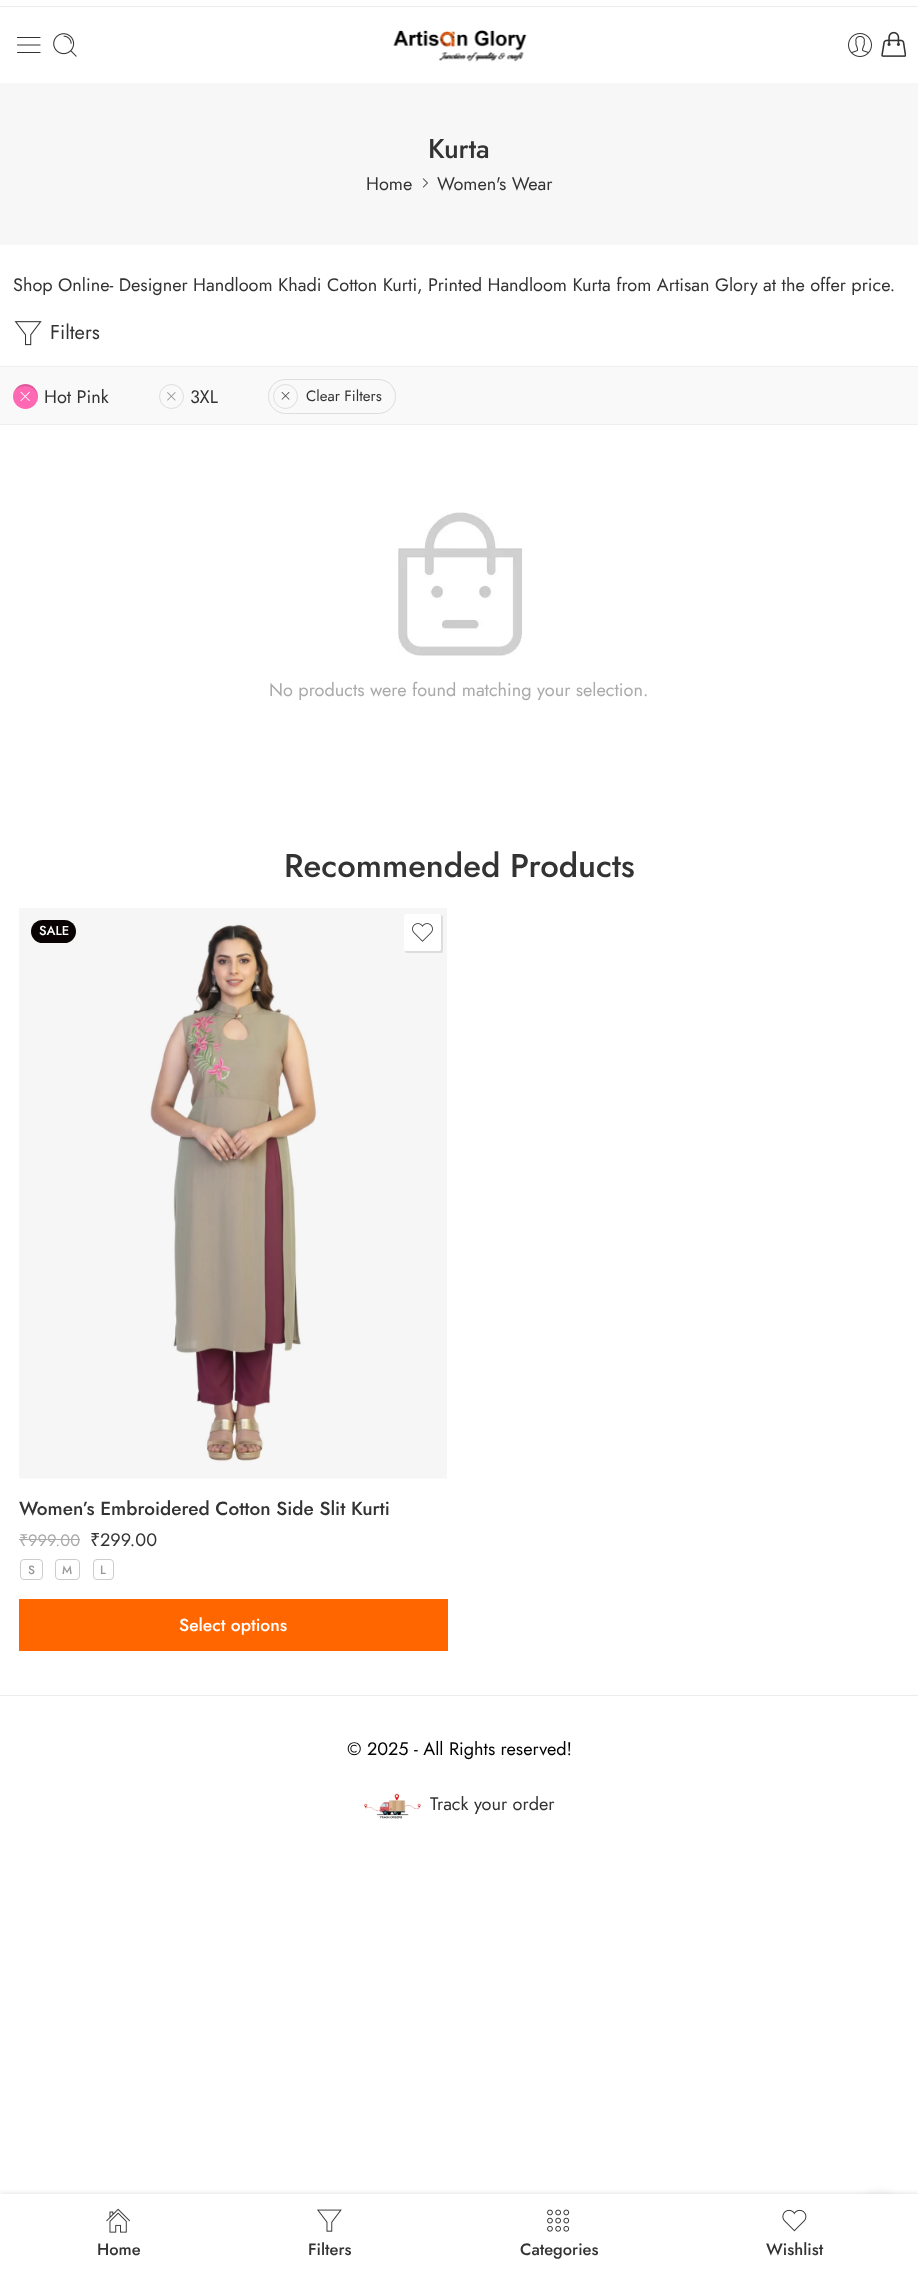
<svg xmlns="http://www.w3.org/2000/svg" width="918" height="2269">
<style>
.a{font:500 27px Jost;fill:#333}
.b{font:18.1px Jost;fill:#333}
.c{font:20px Jost;fill:#333}
.d{font:15px Jost;fill:#333}
.e{font:18.1px Jost;fill:#aaa}
.f{font:500 32.9px Jost;fill:#333}
.g{font:500 13px Jost;fill:#fff}
.h{font:500 19px Jost;fill:#333}
.i{font:16.5px Noto Sans;fill:#aaa}
.j{font:16.5px Jost;fill:#aaa}
.k{font:18.1px Noto Sans;fill:#333}
.l{font:500 12px Jost;fill:#999}
.m{font:500 17.5px Jost;fill:#fff}
.n{font:18.1px Jost;fill:#000}
.o{font:500 16.5px Jost;fill:#333}
</style>
<defs>
<clipPath id="clip1"><rect x="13" y="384" width="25" height="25" rx="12.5"/></clipPath>
<clipPath id="clip2"><path d="M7 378h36v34h-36zm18 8c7 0 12.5 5.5 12.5 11.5c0 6-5.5 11.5-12.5 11.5c-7 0-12.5-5.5-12.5-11.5c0-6 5.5-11.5 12.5-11.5z" clip-rule="evenodd"/></clipPath>
</defs>
<rect width="100%" height="100%" fill="#fff"/>
<path fill="#ececec" d="M0 6h918v1H0z"/>
<path fill="none" stroke="#333" stroke-width="1.2" stroke-linecap="round" stroke-linejoin="round" d="M17.5 45h22.5m-22.5-7.5h22.5m-22.5 15h22.5"/>
<image href="1.png" x="53" y="33" width="24" height="24"/>
<image href="2.png" x="393" y="30" width="134" height="32"/>
<image href="3.png" x="848" y="33" width="24" height="24"/>
<image href="4.png" x="881" y="31" width="25" height="26"/>
<path fill="#f7f7f7" d="M0 83h918v162H0z"/>
<image href="5.png" x="422" y="178" width="6" height="10"/>
<image href="6.png" x="14" y="321" width="28" height="25"/>
<path fill="#f9f9f9" d="M0 367h918v57H0z"/>
<path fill="#eee" d="M0 366h918v1H0z"/>
<path fill="#eee" d="M0 424h918v1H0z"/>
<circle fill="#ff69b4" cx="25.5" cy="396.5" r="12.5"/>
<g clip-path="url(#clip1)">
<g clip-path="url(#clip2)">
<rect fill="#0000004d" filter="blur(2px)" x="14" y="385" width="22" height="20" rx="10"/>
</g>
</g>
<image href="7.png" x="20" y="391" width="10" height="10"/>
<circle fill="none" stroke="#ddd" cx="171.5" cy="396.5" r="12"/>
<image href="8.png" x="167" y="392" width="9" height="9"/>
<rect fill="none" stroke="#ddd" x="268.5" y="379.5" width="127" height="34" rx="17"/>
<circle fill="none" stroke="#ddd" cx="285.5" cy="396.5" r="12"/>
<image href="9.png" x="281" y="392" width="9" height="8"/>
<image href="10.png" x="398" y="512" width="125" height="144"/>
<image href="11.png" x="19" y="908" width="428" height="571"/>
<rect fill="#0a0303" x="31" y="920" width="45" height="23" rx="11.5"/>
<rect fill="#0000001a" filter="blur(0.5px)" x="405" y="915" width="38" height="38" rx="2.5"/>
<rect fill="#fff" x="404" y="914" width="37" height="37" rx="2.5"/>
<image href="12.png" x="412" y="923" width="21" height="19"/>
<path fill="#aaa" d="M19 1539h9v1H19z"/>
<path fill="#aaa" d="M28 1539h52v1H28z"/>
<rect fill="none" stroke="#ccc" x="20.5" y="1559.5" width="22" height="20" rx="3.5"/>
<rect fill="none" stroke="#ccc" x="55.5" y="1559.5" width="24" height="20" rx="3.5"/>
<rect fill="none" stroke="#ccc" x="93.5" y="1559.5" width="20" height="20" rx="3.5"/>
<path fill="#f60" d="M19 1599h429v52H19z"/>
<path fill="#ececec" d="M0 1695h918v1H0z"/>
<image href="13.png" x="364" y="1793" width="57" height="26"/>
<path fill="#0000001a" filter="blur(2px)" d="M0 2193h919v76H0z"/>
<rect fill="#0000001a" filter="blur(6px)" x="850" y="2195" width="59" height="59" rx="29.5"/>
<path fill="#fff" d="M0 2194h918v75H0z"/>
<image href="14.png" x="106" y="2208" width="24" height="25"/>
<image href="15.png" x="317" y="2209" width="25" height="23"/>
<image href="16.png" x="547" y="2209" width="23" height="23"/>
<image href="17.png" x="782" y="2209" width="25" height="23"/>
<text class="a" x="428" y="158">Kurta</text>
<text class="b" x="366" y="190">Home</text>
<text class="b" x="437" y="190">Women's Wear</text>
<text class="b" x="13" y="291">Shop Online- Designer Handloom Khadi Cotton Kurti, Printed Handloom Kurta from Artisan Glory at the offer price.</text>
<text class="c" x="50" y="339">Filters</text>
<text class="b" x="44" y="403">Hot Pink</text>
<text class="b" x="190" y="403">3XL</text>
<text class="d" x="306" y="401">Clear Filters</text>
<text class="e" x="269" y="696">No products were found matching your selection.</text>
<text class="f" x="284" y="877">Recommended Products</text>
<text class="g" x="39" y="935">SALE</text>
<text class="h" x="19" y="1515">Women’s Embroidered Cotton Side Slit Kurti</text>
<text class="i" x="19" y="1546">₹</text>
<text class="j" x="28" y="1546">999.00</text>
<text class="k" x="90" y="1546">₹</text>
<text class="b" x="100" y="1546">299.00</text>
<text class="l" x="28" y="1574">S</text>
<text class="l" x="62" y="1574">M</text>
<text class="l" x="100" y="1574">L</text>
<text class="m" x="179" y="1631">Select options</text>
<text class="n" x="347" y="1755">© 2025 - All Rights reserved!</text>
<text class="b" x="430" y="1810">Track your order</text>
<text class="o" x="97" y="2255">Home</text>
<text class="o" x="308" y="2255">Filters</text>
<text class="o" x="520" y="2255">Categories</text>
<text class="o" x="766" y="2255">Wishlist</text>
</svg>
